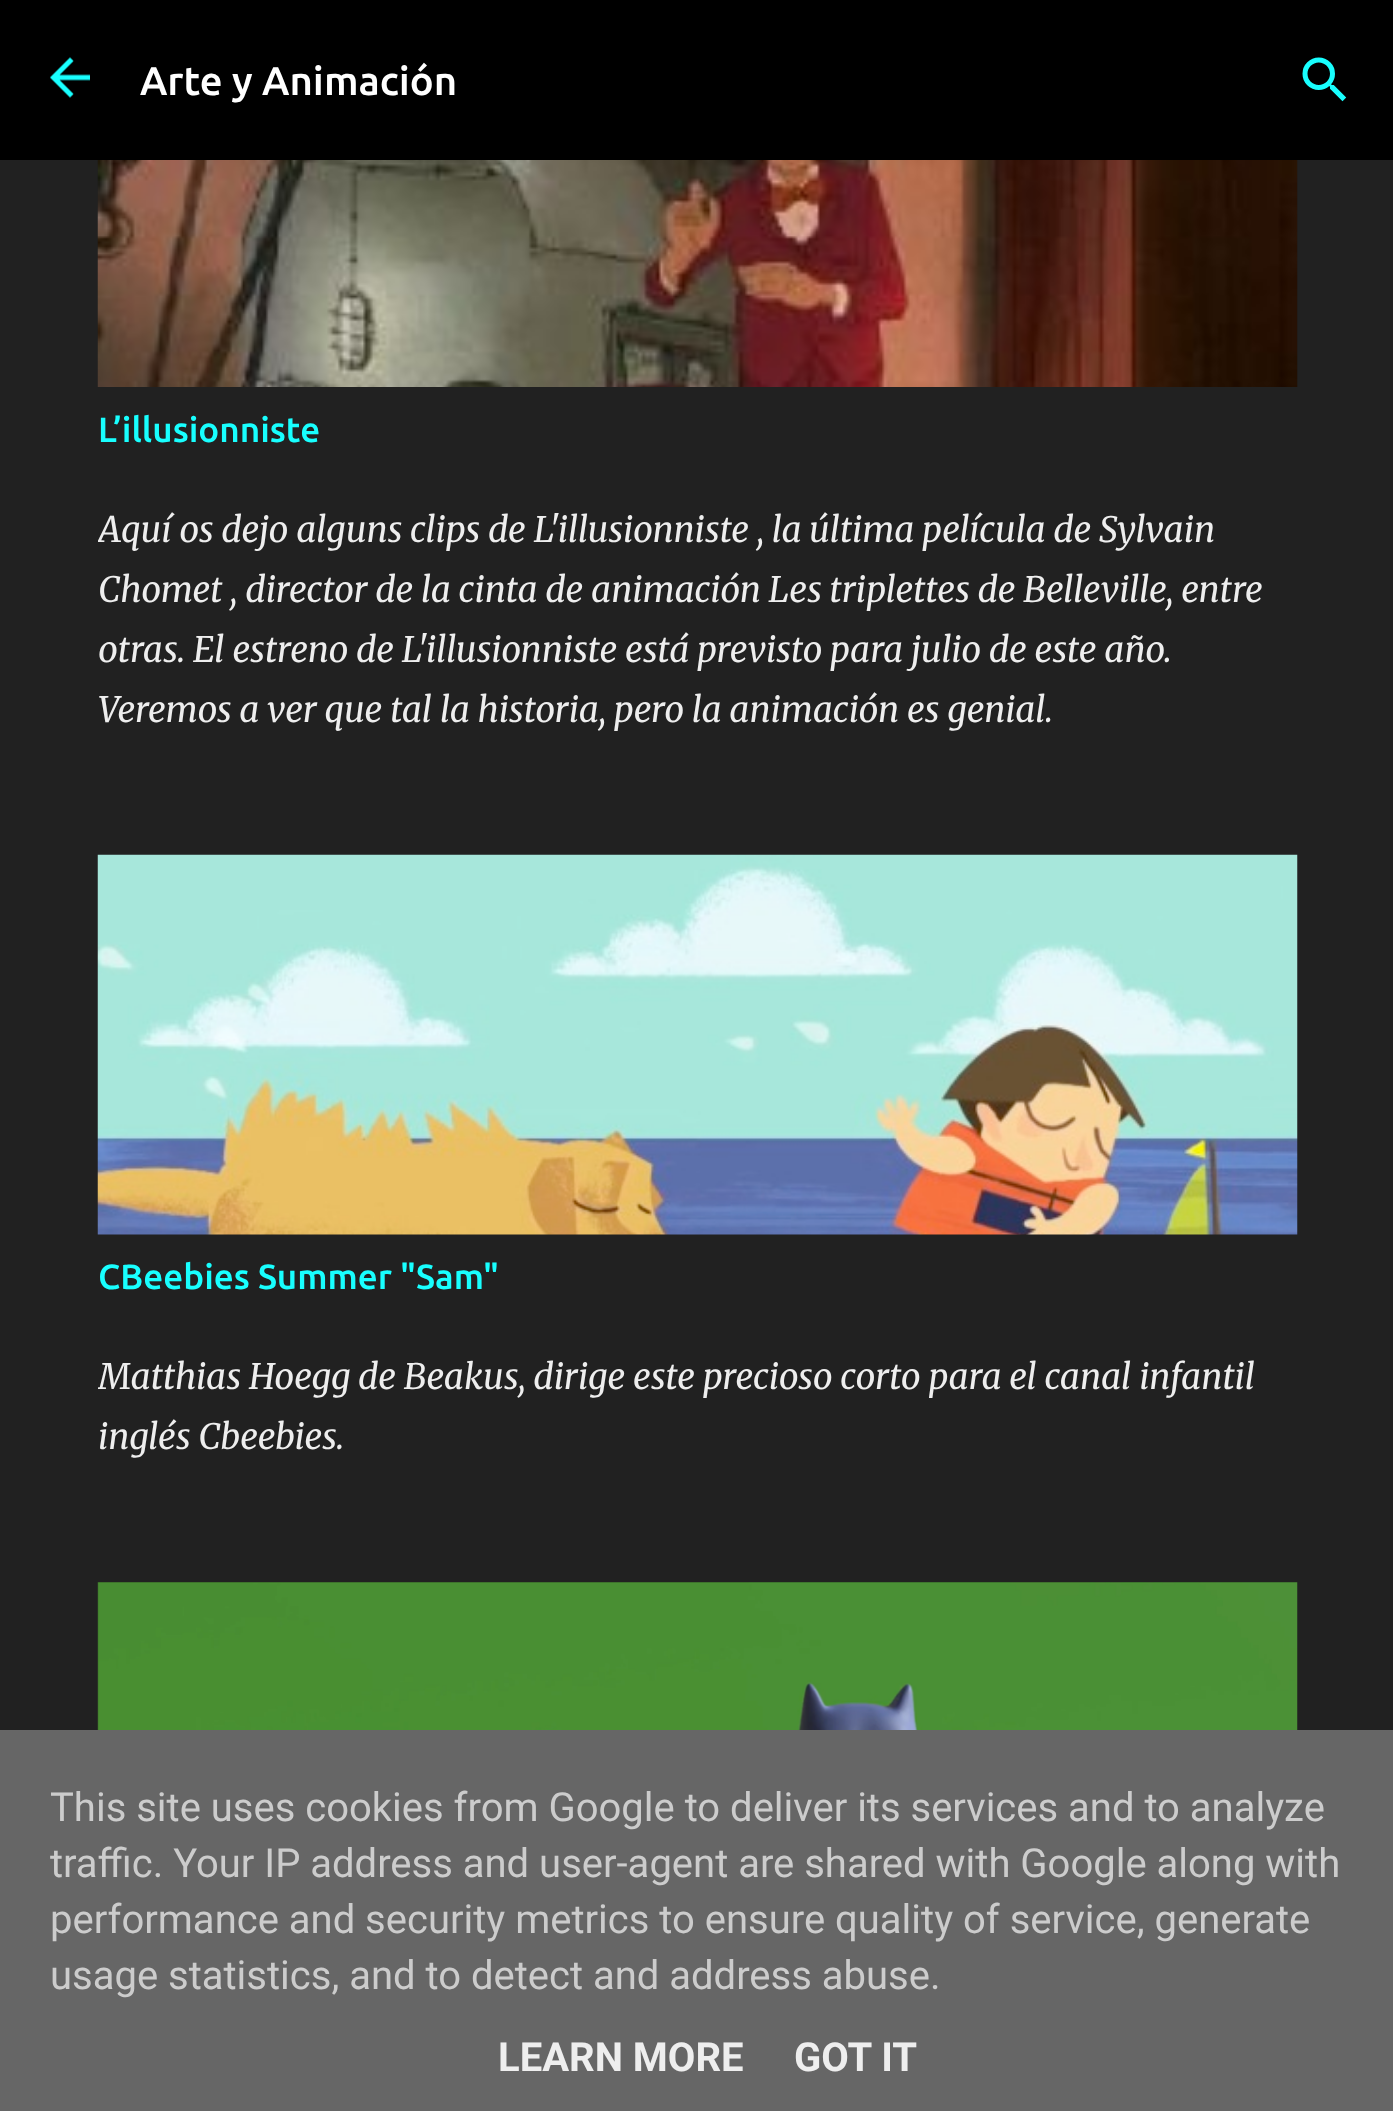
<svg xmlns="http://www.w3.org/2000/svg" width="1393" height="2111">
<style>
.a{font:500 40px Ubuntu;fill:#fff}
.b{font:500 35px Ubuntu;fill:#18ffff}
.c{font:italic 35px Merriweather;fill:#eee}
.d{font:40px Roboto;fill:#ccc}
.e{font:bold 40px Roboto;fill:#eee}
</style>
<defs>
<clipPath id="clip1"><path d="M98 500h1200v240H98z"/></clipPath>
<clipPath id="clip2"><path d="M98 1348h1200v120H98z"/></clipPath>
</defs>
<rect width="100%" height="100%" fill="#212121"/>
<path fill="#000" d="M0 0h1393v160H0z"/>
<image href="1.png" x="50" y="57" width="40" height="41"/>
<image href="2.png" x="1302" y="57" width="45" height="45"/>
<image href="3.png" x="97" y="160" width="1201" height="227"/>
<image href="4.png" x="97" y="854" width="1201" height="381"/>
<image href="5.png" x="97" y="1582" width="1201" height="148"/>
<path fill="#666" d="M0 1730h1393v381H0z"/>
<text class="a" x="140" y="95">Arte y Animación</text>
<text class="b" x="98" y="442">L’illusionniste</text>
<g clip-path="url(#clip1)">
<text class="c" x="98" y="542">Aquí os dejo alguns clips de L'illusionniste , la última película de Sylvain</text>
</g>
<text class="c" x="98" y="602">Chomet , director de la cinta de animación Les triplettes de Belleville, entre</text>
<text class="c" x="98" y="662">otras. El estreno de L'illusionniste está previsto para julio de este año.</text>
<text class="c" x="98" y="722">Veremos a ver que tal la historia, pero la animación es genial.</text>
<text class="b" x="98" y="1289">CBeebies Summer "Sam"</text>
<g clip-path="url(#clip2)">
<text class="c" x="98" y="1389">Matthias Hoegg</text>
</g>
<text class="c" x="358" y="1389">de Beakus, dirige este precioso corto para el canal infantil</text>
<text class="c" x="98" y="1449">inglés Cbeebies.</text>
<text class="d" x="50" y="1821">This site uses cookies from Google to deliver its services and to analyze</text>
<text class="d" x="50" y="1877">traffic. Your IP address and user-agent are shared with Google along with</text>
<text class="d" x="50" y="1933">performance and security metrics to ensure quality of service, generate</text>
<text class="d" x="50" y="1989">usage statistics, and to detect and address abuse.</text>
<text class="e" x="498" y="2071">LEARN MORE</text>
<text class="e" x="794" y="2071">GOT IT</text>
</svg>
